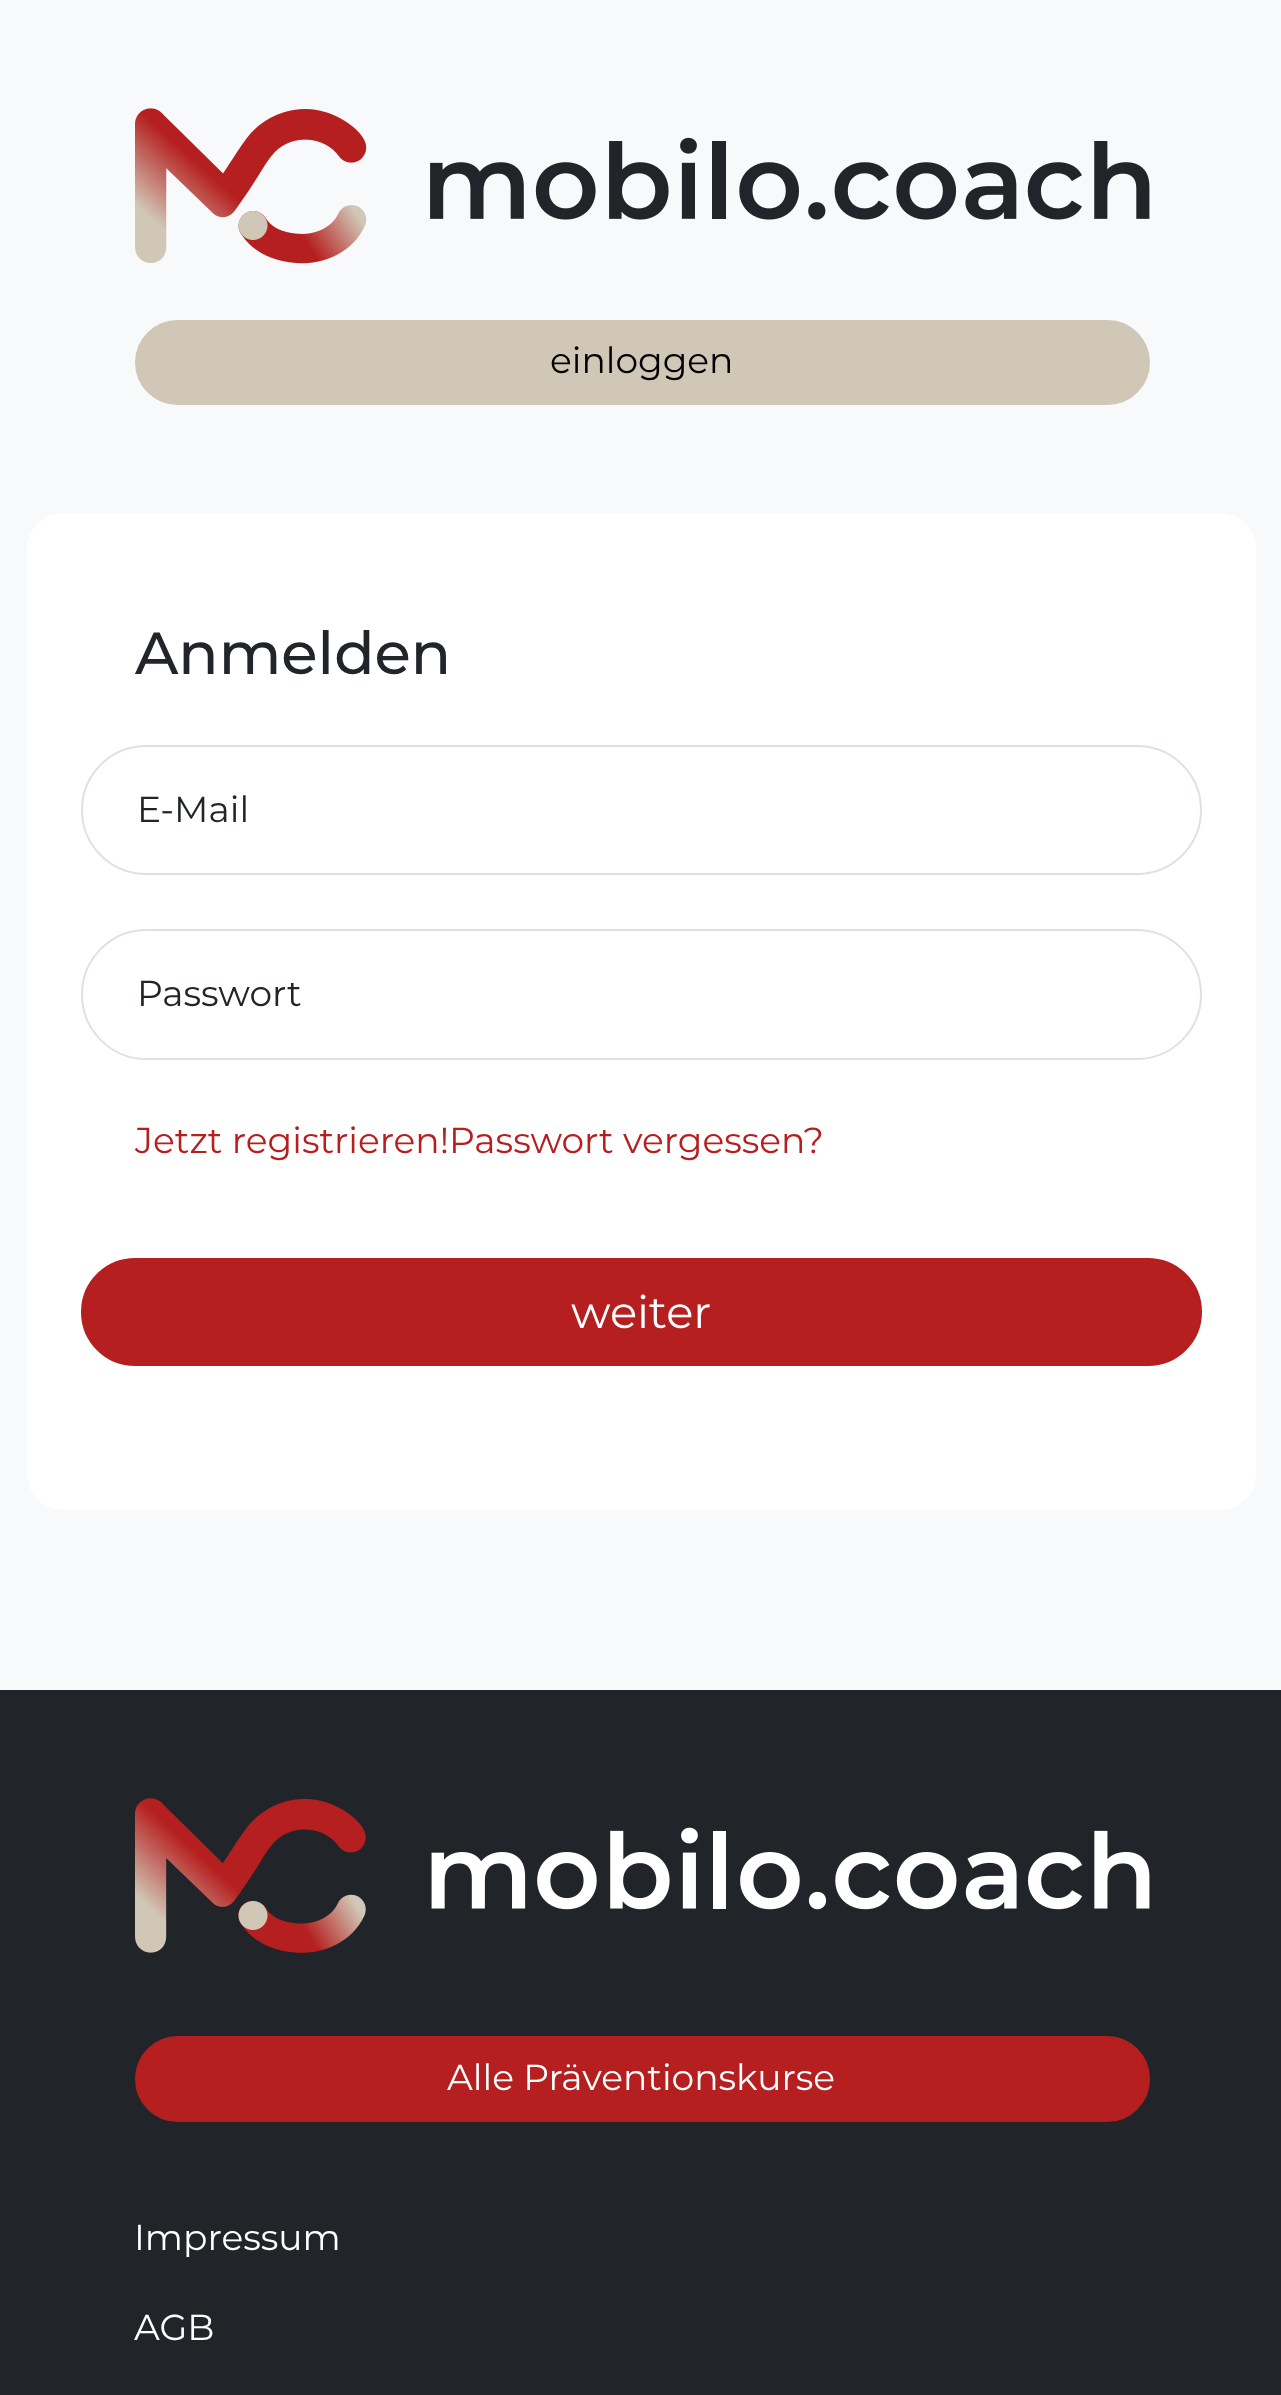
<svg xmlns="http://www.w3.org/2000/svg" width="1281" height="2395">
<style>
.a{font:100 36px Montserrat;fill:#000}
.b{font:100 59.25px 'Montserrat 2';fill:#212529}
.c{font:100 36px Montserrat;fill:#212529}
.d{font:100 36px Montserrat;fill:#b51f1f}
.e{font:100 45px Montserrat;fill:#fff}
.f{font:100 36px Montserrat;fill:#fff}
</style>
<rect width="100%" height="100%" fill="#f8f9fa"/>
<image href="1.png" x="135" y="108" width="1015" height="156"/>
<rect fill="#d1c7b6" stroke="#d1c7b6" stroke-width="2" x="136" y="321" width="1013" height="83" rx="41.5"/>
<rect fill="#fff" x="27" y="513" width="1229" height="997" rx="36"/>
<rect fill="none" stroke="#dee2e6" stroke-width="2" x="82" y="746" width="1119" height="128" rx="64"/>
<rect fill="none" stroke="#dee2e6" stroke-width="2" x="82" y="930" width="1119" height="129" rx="64.5"/>
<rect fill="#b51f1f" stroke="#b51f1f" stroke-width="2" x="82" y="1259" width="1119" height="106" rx="53"/>
<path fill="#212529" d="M0 1690h1281v705H0z"/>
<image href="2.png" x="135" y="1798" width="1015" height="155"/>
<rect fill="#b51f1f" stroke="#b51f1f" stroke-width="2" x="136" y="2037" width="1013" height="84" rx="42"/>
<text class="a" x="550" y="373">einloggen</text>
<text class="b" x="135" y="674">Anmelden</text>
<text class="c" x="137" y="822">E-Mail</text>
<text class="c" x="137" y="1006">Passwort</text>
<text class="d" x="135" y="1153">Jetzt registrieren!Passwort vergessen?</text>
<text class="e" x="571" y="1328">weiter</text>
<text class="f" x="447" y="2090">Alle Präventionskurse</text>
<text class="f" x="134" y="2250">Impressum</text>
<text class="f" x="134" y="2340">AGB</text>
</svg>
